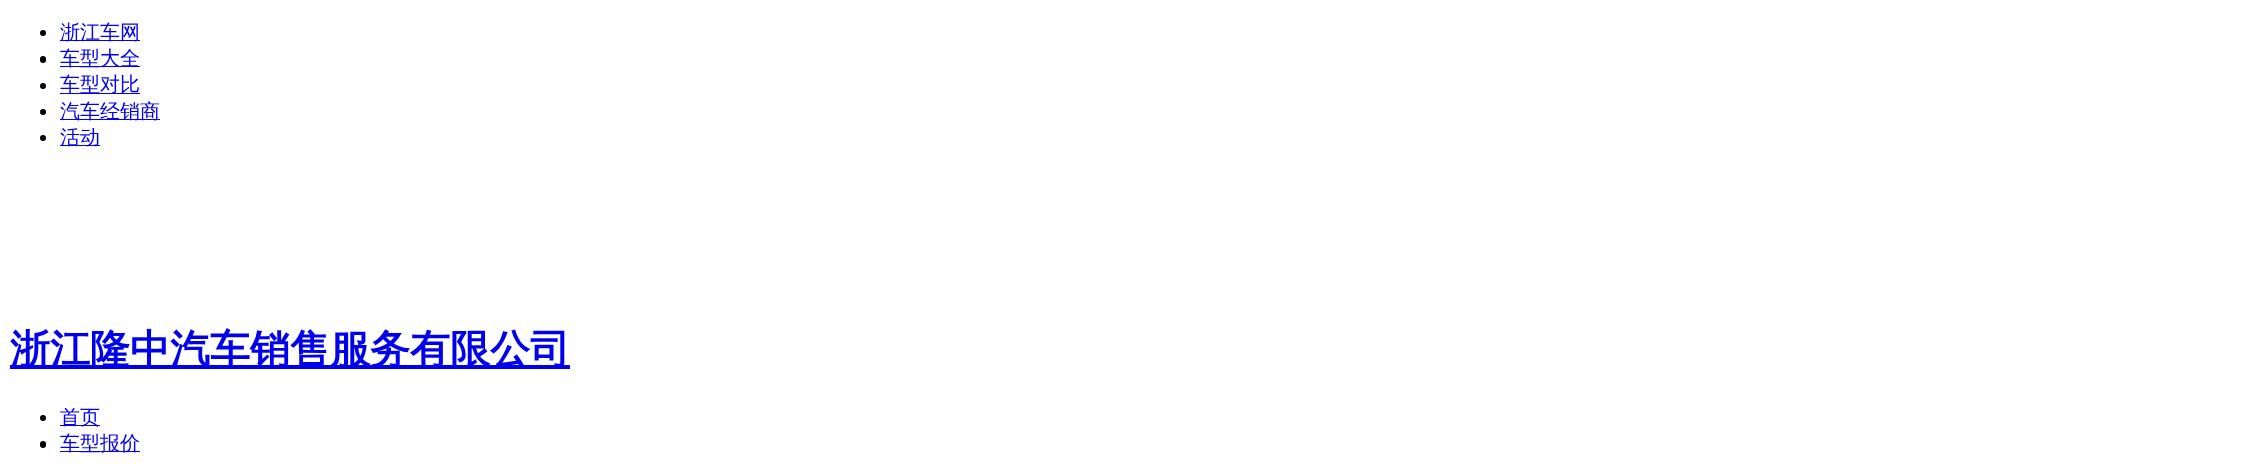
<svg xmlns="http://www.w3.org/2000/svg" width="2253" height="466">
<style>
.a{font:500 20px WenQuanYi Zen Hei;fill:#00e}
.b{font:bold 40px WenQuanYi Zen Hei;fill:#00e}
</style>
<rect width="100%" height="100%" fill="#fff"/>
<circle fill="#000" cx="43" cy="33" r="3"/>
<path fill="#00e" d="M60 40h80v1H60z"/>
<rect fill="#000" x="40" y="56" width="6" height="7" rx="3"/>
<path fill="#00e" d="M60 66h80v1H60z"/>
<circle fill="#000" cx="43" cy="86" r="3"/>
<path fill="#00e" d="M60 93h80v1H60z"/>
<circle fill="#000" cx="43" cy="112" r="3"/>
<path fill="#00e" d="M60 119h100v1H60z"/>
<circle fill="#000" cx="43" cy="138" r="3"/>
<path fill="#00e" d="M60 145h40v1H60z"/>
<path fill="#00e" d="M10 365h560v4H10z"/>
<circle fill="#000" cx="43" cy="418" r="3"/>
<path fill="#00e" d="M60 425h40v1H60z"/>
<rect fill="#000" x="40" y="441" width="6" height="7" rx="3"/>
<path fill="#00e" d="M60 451h80v1H60z"/>
<text class="a" x="60" y="39">浙江车网</text>
<text class="a" x="60" y="65">车型大全</text>
<text class="a" x="60" y="91">车型对比</text>
<text class="a" x="60" y="118">汽车经销商</text>
<text class="a" x="60" y="144">活动</text>
<text class="b" x="10" y="363">浙江隆中汽车销售服务有限公司</text>
<text class="a" x="60" y="424">首页</text>
<text class="a" x="60" y="450">车型报价</text>
</svg>
